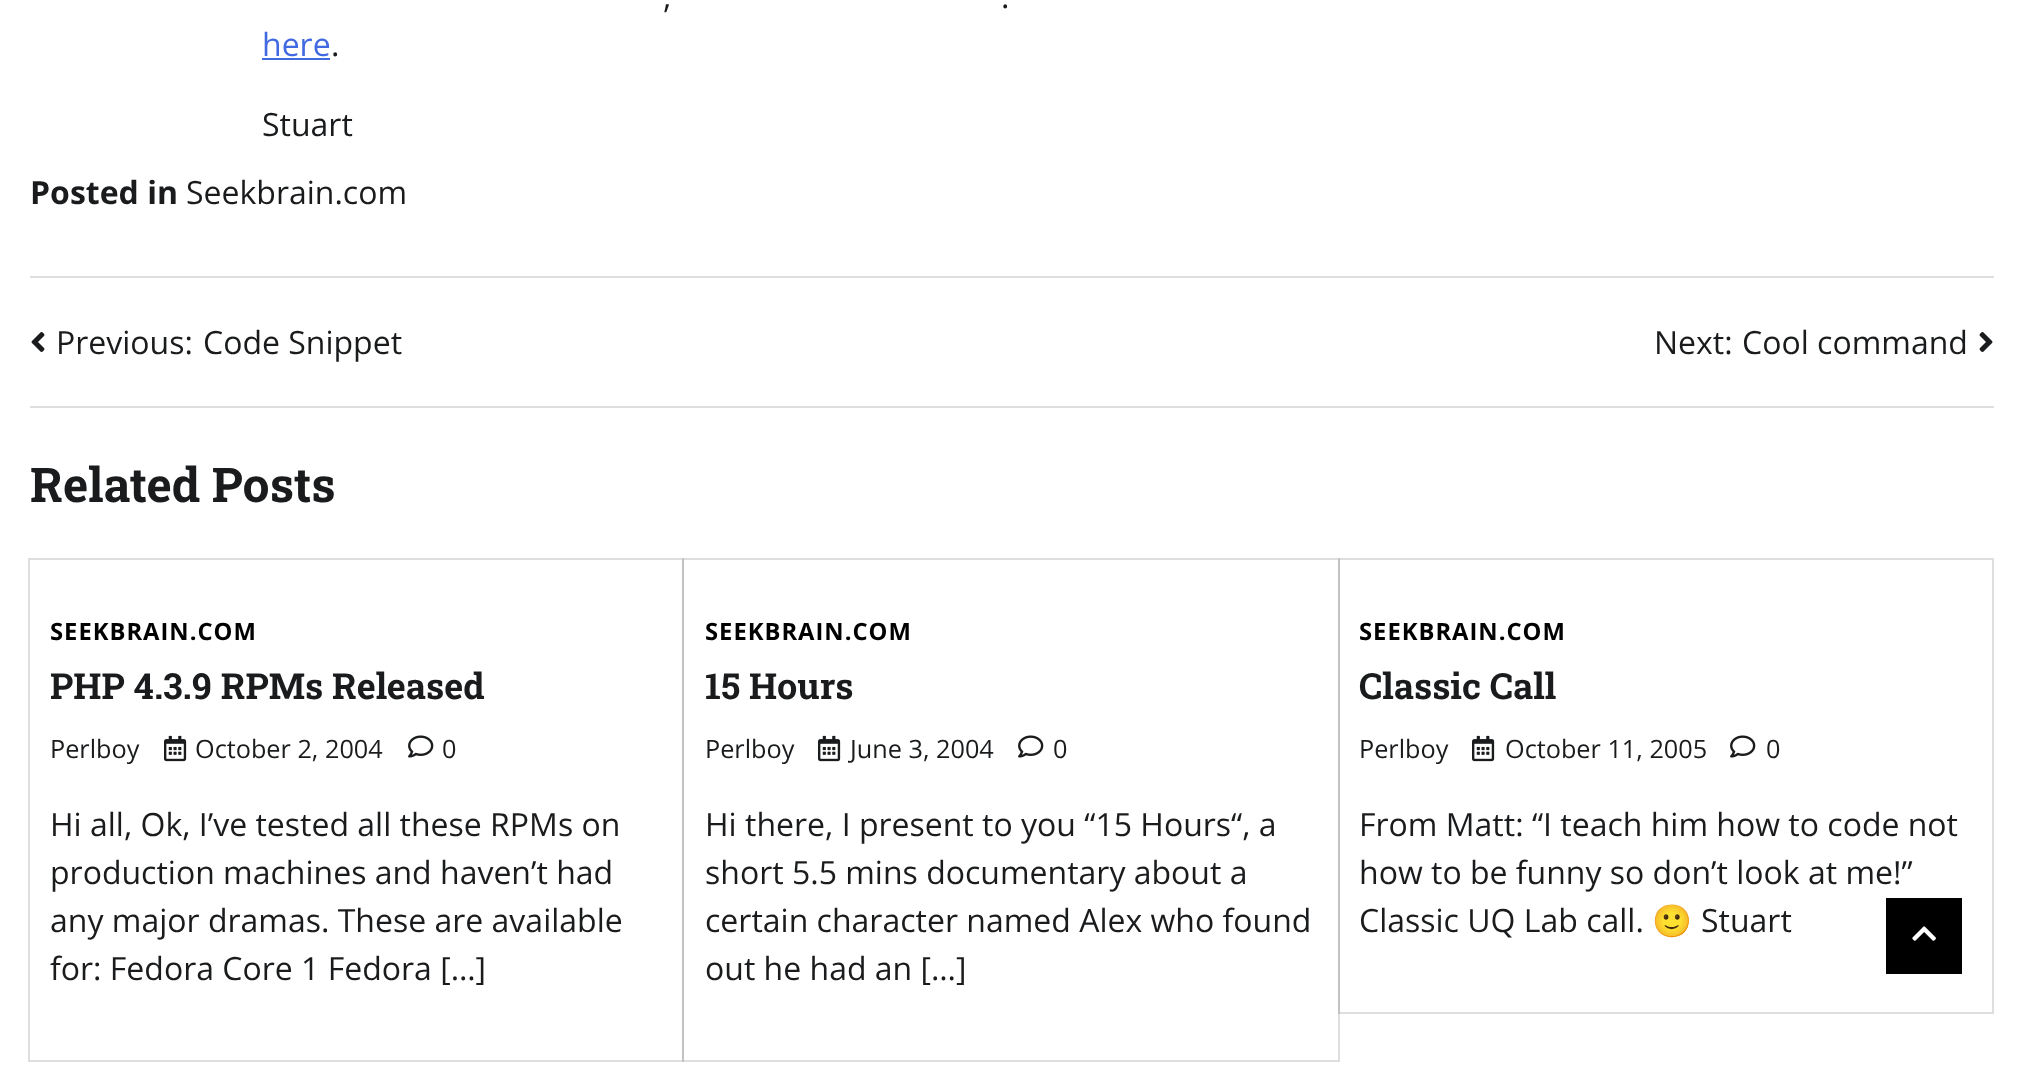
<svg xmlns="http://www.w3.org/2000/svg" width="2024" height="1082">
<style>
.a{font:32px Open Sans;fill:#191b1d}
.b{font:32px Open Sans;fill:#4169e1}
.c{font:bold 32px Open Sans;fill:#191b1d}
.d{font:bold 48px Roboto Slab;fill:#191b1d}
.e{font:bold 23.75px Open Sans;letter-spacing:1px;fill:#000}
.f{font:bold 36px Roboto Slab;fill:#191b1d}
.g{font:25.25px Open Sans;fill:#191b1d}
.h{font:32px Noto Color Emoji;fill:#191b1d}
</style>
<rect width="100%" height="100%" fill="#fff"/>
<path fill="#4169e1" d="M262 58h68v2H262z"/>
<path fill="#dedede" d="M30 276h1964v2H30z"/>
<path fill="#dedede" d="M30 406h1964v2H30z"/>
<image href="1.png" x="31" y="332" width="14" height="20"/>
<image href="2.png" x="1979" y="332" width="14" height="20"/>
<path fill="none" stroke="#dedede" stroke-width="2" d="M29 559h654v502H29z"/>
<image href="3.png" x="164" y="735" width="23" height="27"/>
<image href="4.png" x="408" y="735" width="26" height="23"/>
<path fill="none" stroke="#20212426" stroke-width="2" d="M683 559h656v502H683z"/>
<image href="3.png" x="818" y="735" width="23" height="27"/>
<image href="4.png" x="1018" y="735" width="26" height="23"/>
<path fill="none" stroke="#20212426" stroke-width="2" d="M1339 559h654v454H1339z"/>
<image href="3.png" x="1472" y="735" width="23" height="27"/>
<image href="4.png" x="1730" y="735" width="26" height="23"/>
<path fill="#000" d="M1886 898h76v76H1886z"/>
<image href="5.png" x="1912" y="926" width="24" height="15"/>
<text class="a" x="663" y="8">,</text>
<text class="a" x="1001" y="8">.</text>
<text class="b" x="262" y="56">here</text>
<text class="a" x="331" y="56">.</text>
<text class="a" x="262" y="136">Stuart</text>
<text class="c" x="30" y="204">Posted in</text>
<text class="a" x="186" y="204">Seekbrain.com</text>
<text class="a" x="56" y="354">Previous:</text>
<text class="a" x="203" y="354">Code Snippet</text>
<text class="a" x="1654" y="354">Next:</text>
<text class="a" x="1742" y="354">Cool command</text>
<text class="d" x="30" y="502">Related Posts</text>
<text class="e" x="50" y="640">SEEKBRAIN.COM</text>
<text class="f" x="50" y="699">PHP 4.3.9 RPMs Released</text>
<text class="g" x="50" y="758">Perlboy</text>
<text class="g" x="195" y="758">October 2, 2004</text>
<text class="g" x="442" y="758">0</text>
<text class="a" x="50" y="836">Hi all, Ok, I’ve tested all these RPMs on</text>
<text class="a" x="50" y="884">production machines and haven’t had</text>
<text class="a" x="50" y="932">any major dramas. These are available</text>
<text class="a" x="50" y="980">for: Fedora Core 1 Fedora […]</text>
<text class="e" x="705" y="640">SEEKBRAIN.COM</text>
<text class="f" x="705" y="699">15 Hours</text>
<text class="g" x="705" y="758">Perlboy</text>
<text class="g" x="850" y="758">June 3, 2004</text>
<text class="g" x="1053" y="758">0</text>
<text class="a" x="705" y="836">Hi there, I present to you “15 Hours“, a</text>
<text class="a" x="705" y="884">short 5.5 mins documentary about a</text>
<text class="a" x="705" y="932">certain character named Alex who found</text>
<text class="a" x="705" y="980">out he had an […]</text>
<text class="e" x="1359" y="640">SEEKBRAIN.COM</text>
<text class="f" x="1359" y="699">Classic Call</text>
<text class="g" x="1359" y="758">Perlboy</text>
<text class="g" x="1505" y="758">October 11, 2005</text>
<text class="g" x="1766" y="758">0</text>
<text class="a" x="1359" y="836">From Matt: “I teach him how to code not</text>
<text class="a" x="1359" y="884">how to be funny so don’t look at me!”</text>
<text class="a" x="1359" y="932">Classic UQ Lab call.</text>
<text class="h" x="1652" y="932">🙂</text>
<text class="a" x="1701" y="932">Stuart</text>
</svg>
